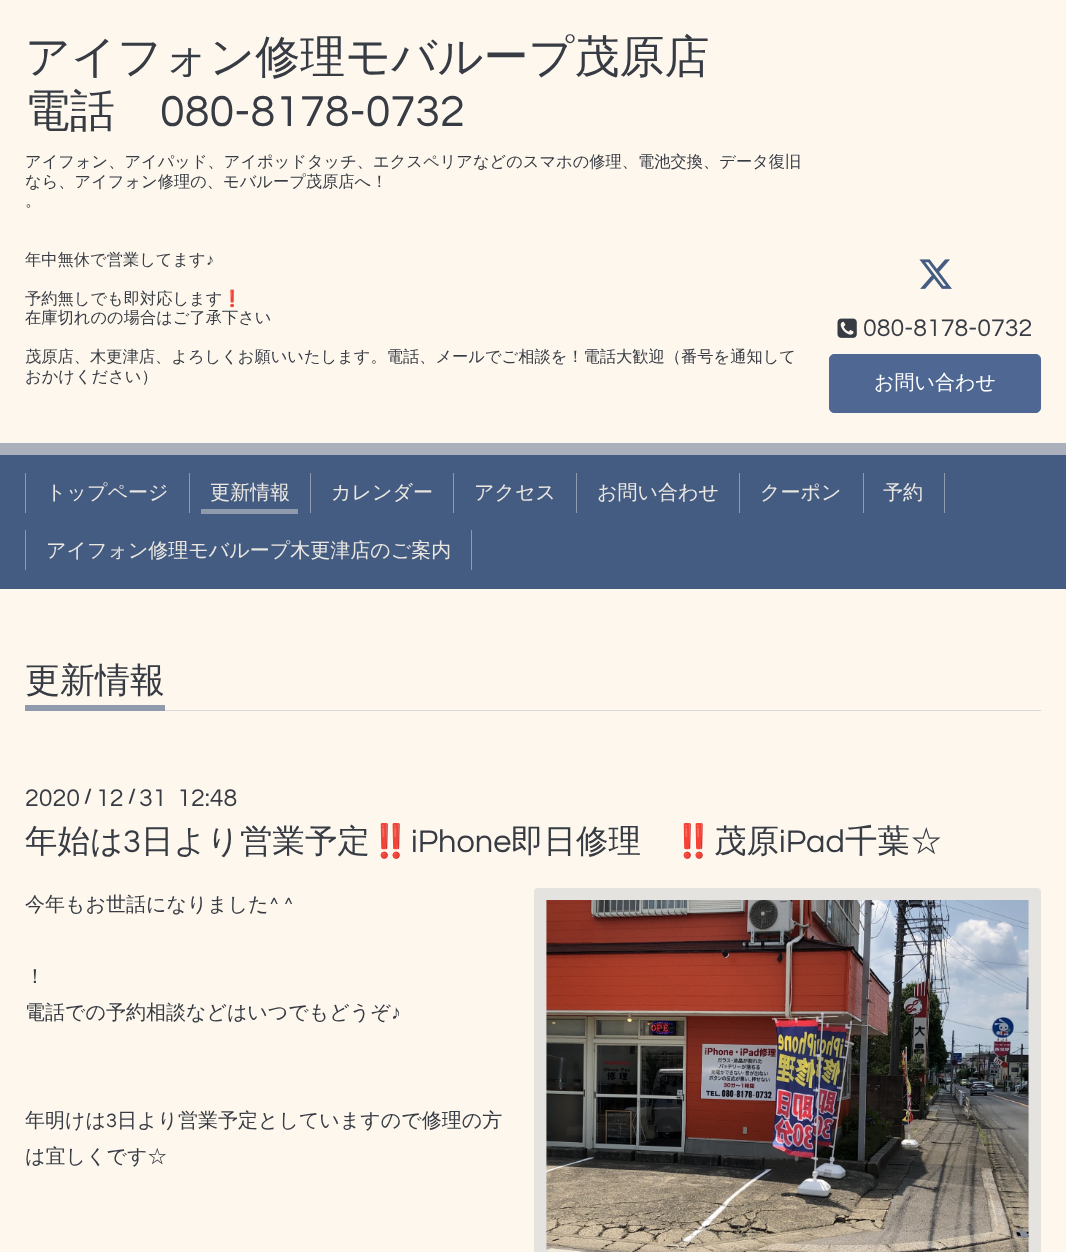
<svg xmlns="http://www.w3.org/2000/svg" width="1066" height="1252">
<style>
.a{font:500 45px WenQuanYi Zen Hei;fill:#373b43}
.b{font:45px Questrial;fill:#373b43}
.c{font:500 16.25px WenQuanYi Zen Hei;fill:#373b43}
.d{font:16.25px Liberation Sans;fill:#373b43}
.e{font:16.25px Noto Color Emoji;fill:#373b43}
.f{font:25px Questrial;fill:#373b43}
.g{font:500 20px WenQuanYi Zen Hei;fill:#fff}
.h{font:500 20px WenQuanYi Zen Hei;fill:#ebe8e2}
.i{font:500 35px WenQuanYi Zen Hei;fill:#373b43}
.j{font:bold 20px Questrial;fill:#373b43}
.k{font:500 32.5px WenQuanYi Zen Hei;fill:#373b43}
.l{font:32.5px Questrial;fill:#373b43}
.m{font:32.5px Noto Color Emoji;fill:#373b43}
.n{font:500 20px WenQuanYi Zen Hei;fill:#373b43}
.o{font:20px Questrial;fill:#373b43}
.p{font:20px Liberation Sans;fill:#373b43}
</style>
<rect width="100%" height="100%" fill="#fdf7ed"/>
<image href="1.png" x="919" y="259" width="33" height="30"/>
<image href="2.png" x="837" y="318" width="20" height="20"/>
<rect fill="#4e6893" stroke="#4e6893" x="829.5" y="354.5" width="211" height="58" rx="4.5"/>
<path fill="#aab1bd" d="M0 443h1066v12H0z"/>
<path fill="#455c82" d="M0 455h1066v134H0z"/>
<path fill="#8f9aad" d="M189 473h1v40H189z"/>
<path fill="#8f9aad" d="M25 473h1v40H25z"/>
<path fill="#8f9aad" d="M310 473h1v40H310z"/>
<path fill="#8f9aad" d="M201 509h97v5H201z"/>
<path fill="#8f9aad" d="M453 473h1v40H453z"/>
<path fill="#8f9aad" d="M576 473h1v40H576z"/>
<path fill="#8f9aad" d="M739 473h1v40H739z"/>
<path fill="#8f9aad" d="M863 473h1v40H863z"/>
<path fill="#8f9aad" d="M944 473h1v40H944z"/>
<path fill="#8f9aad" d="M471 530h1v40H471z"/>
<path fill="#8f9aad" d="M25 530h1v40H25z"/>
<path fill="#d8d8d8" d="M165 710h876v1H165z"/>
<path fill="#8f9aad" d="M25 705h140v6H25z"/>
<rect fill="#e5e3df" x="534" y="888" width="507" height="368" rx="4"/>
<image href="3.png" x="546" y="900" width="483" height="352"/>
<text class="a" x="25" y="72">アイフォン修理モバループ茂原店</text>
<text class="a" x="25" y="126">電話</text>
<text class="b" x="160" y="126">080-8178-0732</text>
<text class="c" x="25" y="167">アイフォン、アイパッド、アイポッドタッチ、エクスペリアなどのスマホの修理、電池交換、データ復旧</text>
<text class="c" x="25" y="187">なら、アイフォン修理の、モバループ茂原店へ！</text>
<text class="c" x="25" y="206">。</text>
<text class="c" x="25" y="265">年中無休で営業してます</text>
<text class="d" x="206" y="265">♪</text>
<text class="c" x="25" y="304">予約無しでも即対応します</text>
<text class="e" x="222" y="304">❗️</text>
<text class="c" x="25" y="323">在庫切れのの場合はご了承下さい</text>
<text class="c" x="25" y="362">茂原店、木更津店、よろしくお願いいたします。電話、メールでご相談を！電話大歓迎（番号を通知して</text>
<text class="c" x="25" y="382">おかけください）</text>
<text class="f" x="863" y="336">080-8178-0732</text>
<text class="g" x="874" y="389">お問い合わせ</text>
<text class="h" x="46" y="499">トップページ</text>
<text class="h" x="210" y="499">更新情報</text>
<text class="h" x="331" y="499">カレンダー</text>
<text class="h" x="474" y="499">アクセス</text>
<text class="h" x="597" y="499">お問い合わせ</text>
<text class="h" x="760" y="499">クーポン</text>
<text class="h" x="883" y="499">予約</text>
<text class="h" x="46" y="557">アイフォン修理モバループ木更津店のご案内</text>
<text class="i" x="25" y="692">更新情報</text>
<text class="f" x="25" y="806">2020</text>
<text class="j" x="84" y="803">/</text>
<text class="f" x="96" y="806">12</text>
<text class="j" x="128" y="803">/</text>
<text class="f" xml:space="preserve" x="139" y="806">31  12:48</text>
<text class="k" x="25" y="852">年始は</text>
<text class="l" x="123" y="852">3</text>
<text class="k" x="141" y="852">日より営業予定</text>
<text class="m" x="370" y="852">‼️</text>
<text class="l" x="411" y="852">iPhone</text>
<text class="k" x="511" y="852">即日修理</text>
<text class="m" x="673" y="852">‼️</text>
<text class="k" x="714" y="852">茂原</text>
<text class="l" x="779" y="852">iPad</text>
<text class="k" x="845" y="852">千葉☆</text>
<text class="n" x="25" y="911">今年もお世話になりました</text>
<text class="o" x="269" y="911">^ ^</text>
<text class="n" x="25" y="983">！</text>
<text class="n" x="25" y="1019">電話での予約相談などはいつでもどうぞ</text>
<text class="p" x="391" y="1019">♪</text>
<text class="n" x="25" y="1127">年明けは</text>
<text class="o" x="106" y="1127">3</text>
<text class="n" x="117" y="1127">日より営業予定としていますので修理の方</text>
<text class="n" x="25" y="1163">は宜しくです☆</text>
</svg>
